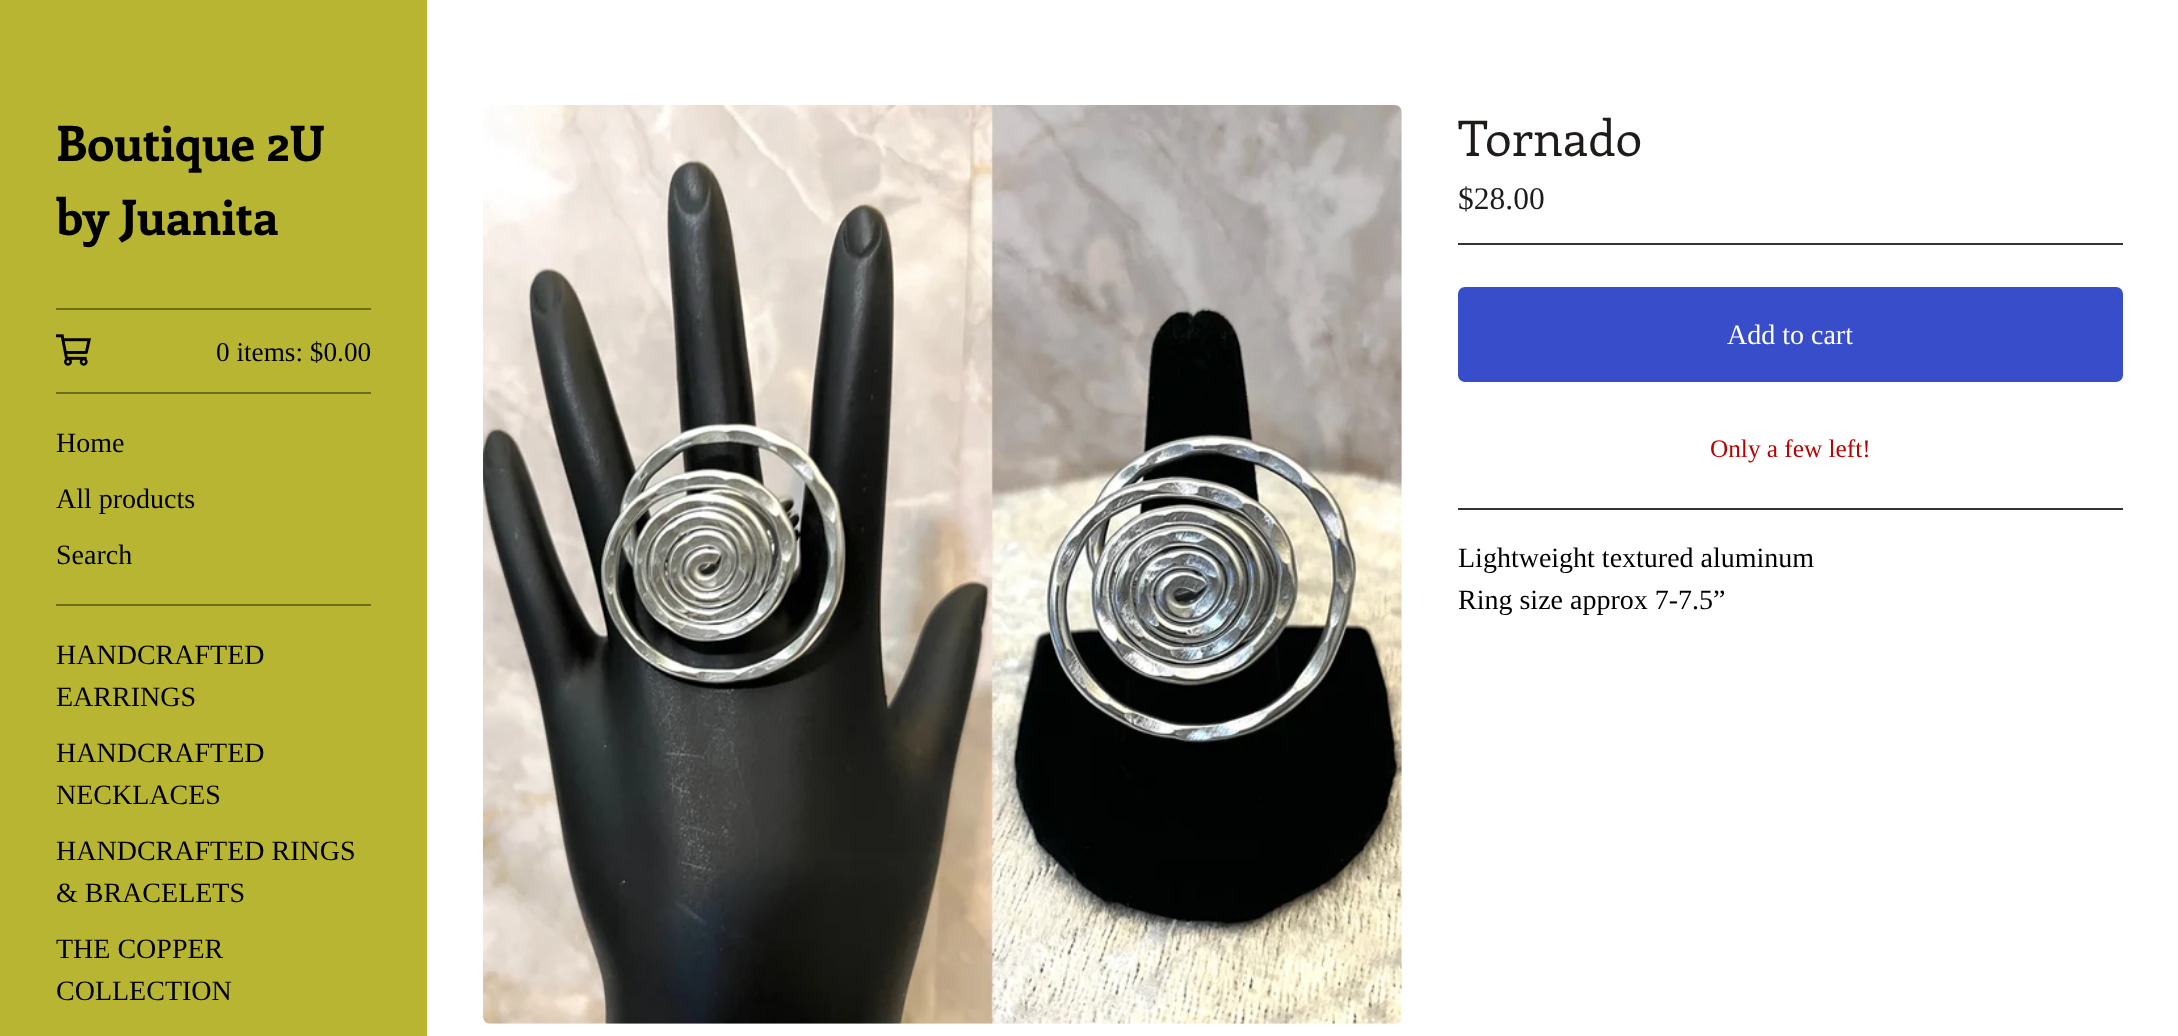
<svg xmlns="http://www.w3.org/2000/svg" width="2178" height="1036">
<style>
.a{font:bold 49px Enriqueta;fill:#000}
.b{font:27.25px Liberation Serif;fill:#000}
.c{font:28px Liberation Serif;fill:#000}
.d{font:49px Enriqueta;fill:#1f1b1b}
.e{font:31.5px Liberation Serif;fill:#1f1b1b}
.f{font:28px Liberation Serif;fill:#fff}
.g{font:25.25px Liberation Serif;fill:#b70303}
</style>
<rect width="100%" height="100%" fill="#fff"/>
<path fill="#b8b532" d="M0 0h427v1036H0z"/>
<path fill="#6e6d1e" d="M56 308h315v2H56z"/>
<image href="1.png" x="56" y="334" width="35" height="32"/>
<path fill="#6e6d1e" d="M56 392h315v2H56z"/>
<path fill="#6e6d1e" d="M56 604h315v2H56z"/>
<image href="2.png" x="483" y="105" width="919" height="919"/>
<path fill="#333" d="M1458 243h665v2H1458z"/>
<path fill="#333" d="M1458 508h665v2H1458z"/>
<rect fill="#374dca" x="1458" y="287" width="665" height="95" rx="7"/>
<text class="a" x="56" y="161">Boutique 2U</text>
<text class="a" x="56" y="235">by Juanita</text>
<text class="b" x="216" y="361">0 items: $0.00</text>
<text class="c" x="56" y="452">Home</text>
<text class="c" x="56" y="508">All products</text>
<text class="c" x="56" y="564">Search</text>
<text class="c" x="56" y="664">HANDCRAFTED</text>
<text class="c" x="56" y="706">EARRINGS</text>
<text class="c" x="56" y="762">HANDCRAFTED</text>
<text class="c" x="56" y="804">NECKLACES</text>
<text class="c" x="56" y="860">HANDCRAFTED RINGS</text>
<text class="c" x="56" y="902">&amp; BRACELETS</text>
<text class="c" x="56" y="958">THE COPPER</text>
<text class="c" x="56" y="1000">COLLECTION</text>
<text class="d" x="1458" y="156">Tornado</text>
<text class="e" x="1458" y="209">$28.00</text>
<text class="f" x="1727" y="344">Add to cart</text>
<text class="g" x="1710" y="457">Only a few left!</text>
<text class="c" x="1458" y="567">Lightweight textured aluminum</text>
<text class="c" x="1458" y="609">Ring size approx 7-7.5”</text>
</svg>
